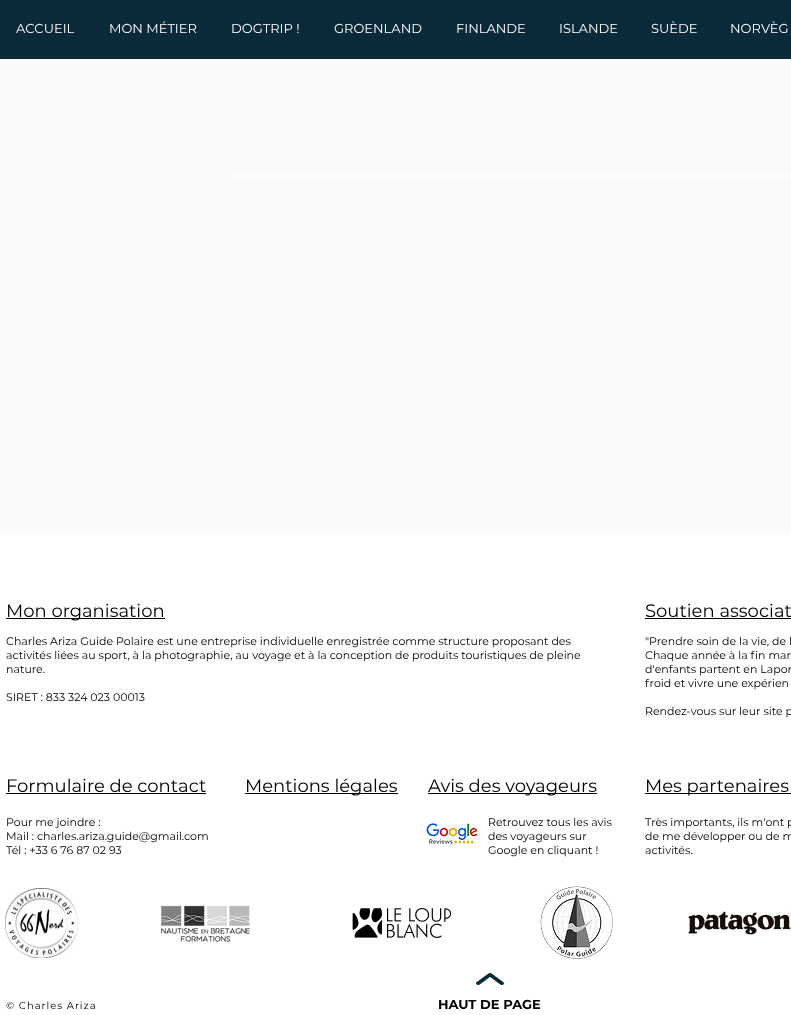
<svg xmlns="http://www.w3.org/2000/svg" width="791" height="1015">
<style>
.a{font:13px Montserrat;fill:#fff}
.b{font:18px Montserrat;fill:#000}
.c{font:11px Montserrat;fill:#000}
.d{font:10px Montserrat;letter-spacing:1px;fill:#000}
.e{font:bold 13px Montserrat;fill:#000}
</style>
<rect width="100%" height="100%" fill="#fff"/>
<path fill="#0b2a39" d="M0 0h791v59H0z"/>
<path fill="#fafafa" d="M0 59h791v474H0z"/>
<path fill="#fff" d="M230 175h561v2H230z"/>
<path fill="#000" d="M6 618h159v1H6z"/>
<path fill="#000" d="M645 618h146v1H645z"/>
<path fill="#000" d="M6 793h200v1H6z"/>
<path fill="#000" d="M245 793h153v1H245z"/>
<path fill="#000" d="M428 793h169v1H428z"/>
<path fill="#000" d="M645 793h146v1H645z"/>
<image href="1.png" x="426" y="821" width="52" height="25"/>
<image href="2.png" x="5" y="888" width="73" height="70"/>
<image href="3.png" x="160" y="905" width="90" height="37"/>
<image href="4.png" x="352" y="908" width="100" height="30"/>
<image href="5.png" x="540" y="886" width="73" height="73"/>
<image href="6.png" x="688" y="911" width="103" height="24"/>
<image href="7.png" x="476" y="973" width="28" height="12"/>
<text class="a" x="16" y="33">ACCUEIL</text>
<text class="a" x="109" y="33">MON MÉTIER</text>
<text class="a" x="231" y="33">DOGTRIP !</text>
<text class="a" x="334" y="33">GROENLAND</text>
<text class="a" x="456" y="33">FINLANDE</text>
<text class="a" x="559" y="33">ISLANDE</text>
<text class="a" x="651" y="33">SUÈDE</text>
<text class="a" x="730" y="33">NORVÈG</text>
<text class="b" x="6" y="617">Mon organisation</text>
<text class="b" x="645" y="617">Soutien associat</text>
<text class="c" x="6" y="645">Charles Ariza Guide Polaire est une entreprise individuelle enregistrée comme structure proposant des</text>
<text class="c" x="6" y="659">activités liées au sport, à la photographie, au voyage et à la conception de produits touristiques de pleine</text>
<text class="c" x="6" y="673">nature.</text>
<text class="c" x="6" y="701">SIRET : 833 324 023 00013</text>
<text class="c" x="645" y="645">"Prendre soin de la vie, de l</text>
<text class="c" x="645" y="659">Chaque année à la fin mar</text>
<text class="c" x="645" y="673">d'enfants partent en Lapon</text>
<text class="c" x="645" y="687">froid et vivre une expérien</text>
<text class="c" x="645" y="715">Rendez-vous sur leur site p</text>
<text class="b" x="6" y="792">Formulaire de contact</text>
<text class="b" x="245" y="792">Mentions légales</text>
<text class="b" x="428" y="792">Avis des voyageurs</text>
<text class="b" x="645" y="792">Mes partenaires</text>
<text class="c" x="6" y="826">Pour me joindre :</text>
<text class="c" x="6" y="840">Mail : charles.ariza.guide@gmail.com</text>
<text class="c" x="6" y="854">Tél : +33 6 76 87 02 93</text>
<text class="c" x="488" y="826">Retrouvez tous les avis</text>
<text class="c" x="488" y="840">des voyageurs sur</text>
<text class="c" x="488" y="854">Google en cliquant !</text>
<text class="c" x="645" y="826">Très importants, ils m'ont p</text>
<text class="c" x="645" y="840">de me développer ou de m</text>
<text class="c" x="645" y="854">activités.</text>
<text class="d" x="6" y="1009">© Charles Ariza</text>
<text class="e" x="438" y="1009">HAUT DE PAGE</text>
</svg>
